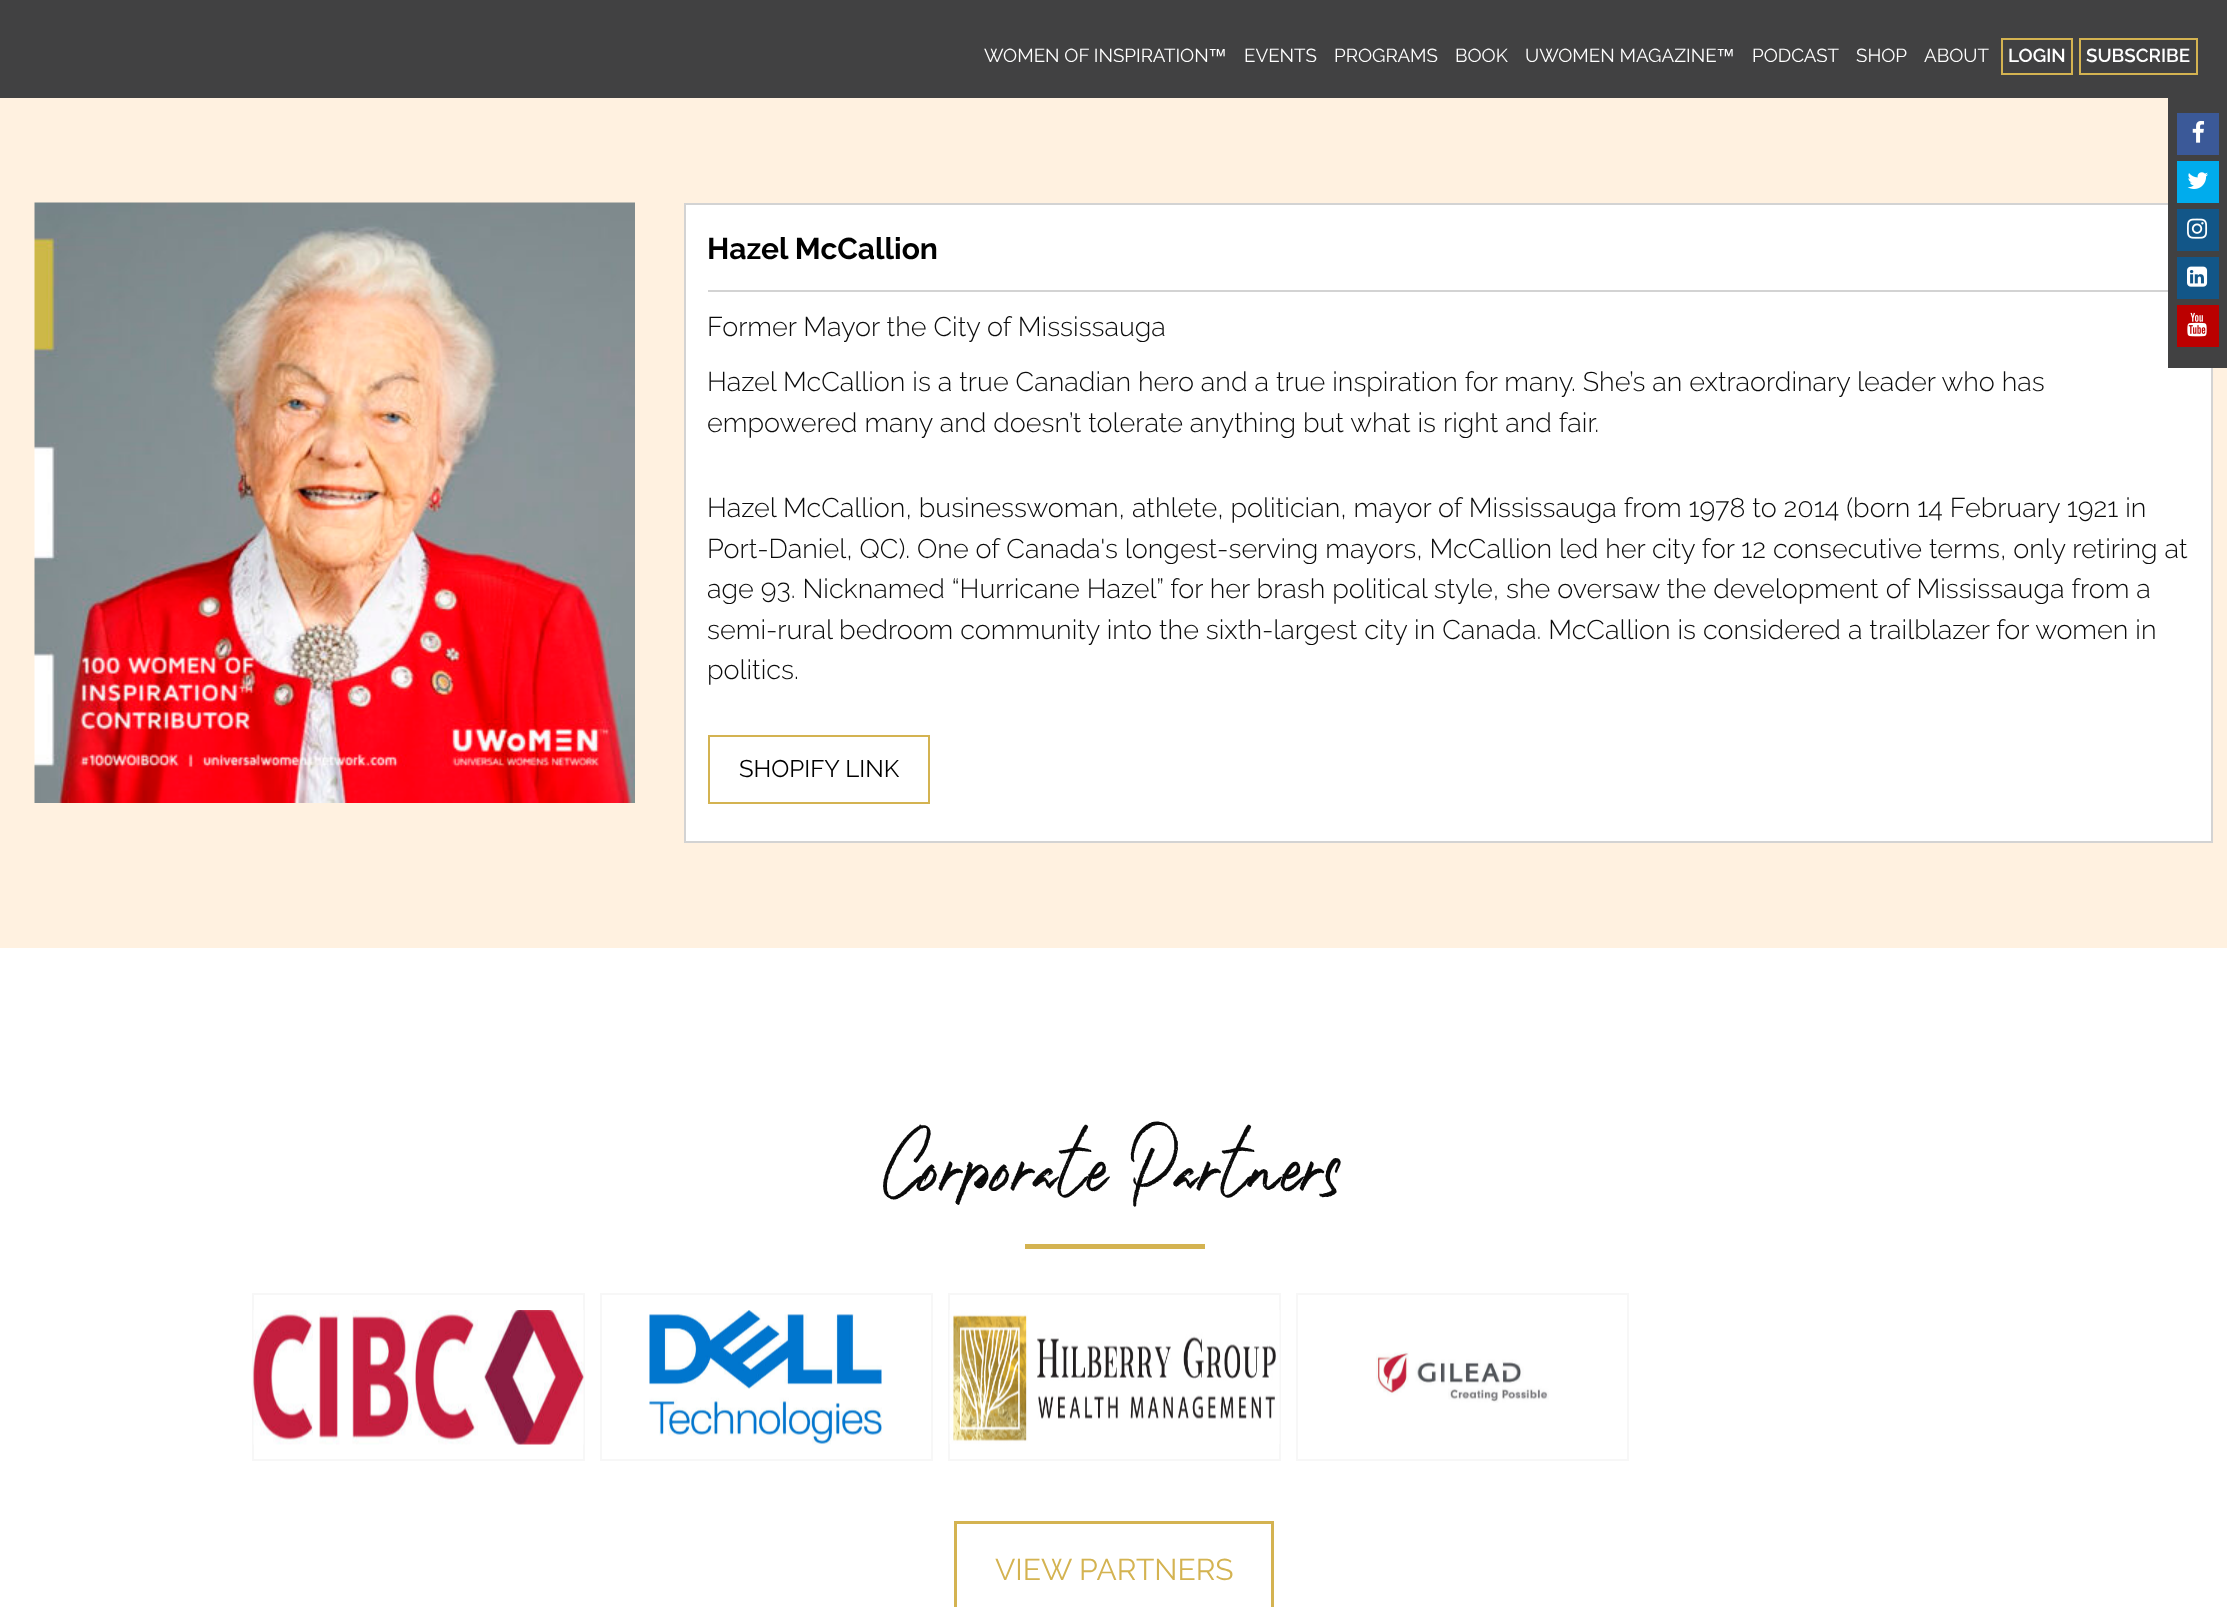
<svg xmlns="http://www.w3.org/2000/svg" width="2227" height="1607">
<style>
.a{font:18.75px Raleway;fill:#fff}
.b{font:18.75px Liberation Sans;fill:#fff}
.c{font:600 18.75px Raleway;fill:#fff}
.d{font:bold 30px Raleway;fill:#000}
.e{font:300 27px Raleway;fill:#0b0b0b}
.f{font:24px Raleway;fill:#000}
.g{font:144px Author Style;letter-spacing:1.5px;fill:#0b0b0b}
.h{font:30px Raleway;fill:#d4b351}
</style>
<rect width="100%" height="100%" fill="#fff"/>
<path fill="#414142" d="M0 0h2227v98H0z"/>
<path fill="none" stroke="#d4b351" stroke-width="2" d="M2002 39h70v35H2002z"/>
<path fill="none" stroke="#d4b351" stroke-width="2" d="M2080 39h117v35H2080z"/>
<path fill="#fff1e0" d="M0 98h2227v850H0z"/>
<image href="1.png" x="34" y="202" width="601" height="601"/>
<path fill="#fff" stroke="#d3d3d3" stroke-width="2" d="M685 204h1527v638H685z"/>
<path fill="#d3d3d3" d="M708 290h1460v2H708z"/>
<path fill="none" stroke="#d4b351" stroke-width="2" d="M709 736h220v67H709z"/>
<path fill="#414142" d="M2168 98h59v270H2168z"/>
<path fill="#3b5998" d="M2177 113h42v42H2177z"/>
<image href="2.png" x="2192" y="120" width="13" height="23"/>
<path fill="#00aced" d="M2177 161h42v42H2177z"/>
<image href="3.png" x="2187" y="172" width="21" height="17"/>
<path fill="#125688" d="M2177 209h42v42H2177z"/>
<image href="4.png" x="2187" y="218" width="21" height="21"/>
<path fill="#125688" d="M2177 257h42v42H2177z"/>
<image href="5.png" x="2187" y="266" width="21" height="21"/>
<path fill="#b00" d="M2177 305h42v42H2177z"/>
<image href="6.png" x="2187" y="312" width="20" height="25"/>
<path fill="#d4b351" d="M1025 1244h180v5H1025z"/>
<path fill="none" stroke="#f7f7f7" stroke-width="2" d="M253 1294h331v166H253z"/>
<image href="7.png" x="253" y="1310" width="331" height="135"/>
<path fill="none" stroke="#f7f7f7" stroke-width="2" d="M601 1294h331v166H601z"/>
<image href="8.png" x="649" y="1310" width="233" height="135"/>
<path fill="none" stroke="#f7f7f7" stroke-width="2" d="M949 1294h331v166H949z"/>
<image href="9.png" x="949" y="1310" width="331" height="134"/>
<path fill="none" stroke="#f7f7f7" stroke-width="2" d="M1297 1294h331v166H1297z"/>
<image href="10.png" x="1376" y="1351" width="173" height="52"/>
<path fill="none" stroke="#d4b351" stroke-width="3" d="M955.5 1522.5h317v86H955.5z"/>
<text class="a" x="984" y="62">WOMEN OF INSPIRATION</text>
<text class="b" x="1208" y="62">™</text>
<text class="a" x="1244" y="62">EVENTS</text>
<text class="a" x="1334" y="62">PROGRAMS</text>
<text class="a" x="1455" y="62">BOOK</text>
<text class="a" x="1525" y="62">UWOMEN MAGAZINE</text>
<text class="b" x="1716" y="62">™</text>
<text class="a" x="1752" y="62">PODCAST</text>
<text class="a" x="1856" y="62">SHOP</text>
<text class="a" x="1924" y="62">ABOUT</text>
<text class="c" x="2008" y="62">LOGIN</text>
<text class="c" x="2086" y="62">SUBSCRIBE</text>
<text class="d" x="707" y="259">Hazel McCallion</text>
<text class="e" x="707" y="336">Former Mayor the City of Mississauga</text>
<text class="e" x="707" y="391">Hazel McCallion is a true Canadian hero and a true inspiration for many. She’s an extraordinary leader who has</text>
<text class="e" x="707" y="432">empowered many and doesn’t tolerate anything but what is right and fair.</text>
<text class="e" x="707" y="517">Hazel McCallion, businesswoman, athlete, politician, mayor of Mississauga from 1978 to 2014 (born 14 February 1921 in</text>
<text class="e" x="707" y="558">Port-Daniel, QC). One of Canada's longest-serving mayors, McCallion led her city for 12 consecutive terms, only retiring at</text>
<text class="e" x="707" y="598">age 93. Nicknamed “Hurricane Hazel” for her brash political style, she oversaw the development of Mississauga from a</text>
<text class="e" x="707" y="639">semi-rural bedroom community into the sixth-largest city in Canada. McCallion is considered a trailblazer for women in</text>
<text class="e" x="707" y="679">politics.</text>
<text class="f" x="739" y="777">SHOPIFY LINK</text>
<text class="g" x="883" y="1192">Corporate Partners</text>
<text class="h" x="995" y="1580">VIEW PARTNERS</text>
</svg>
